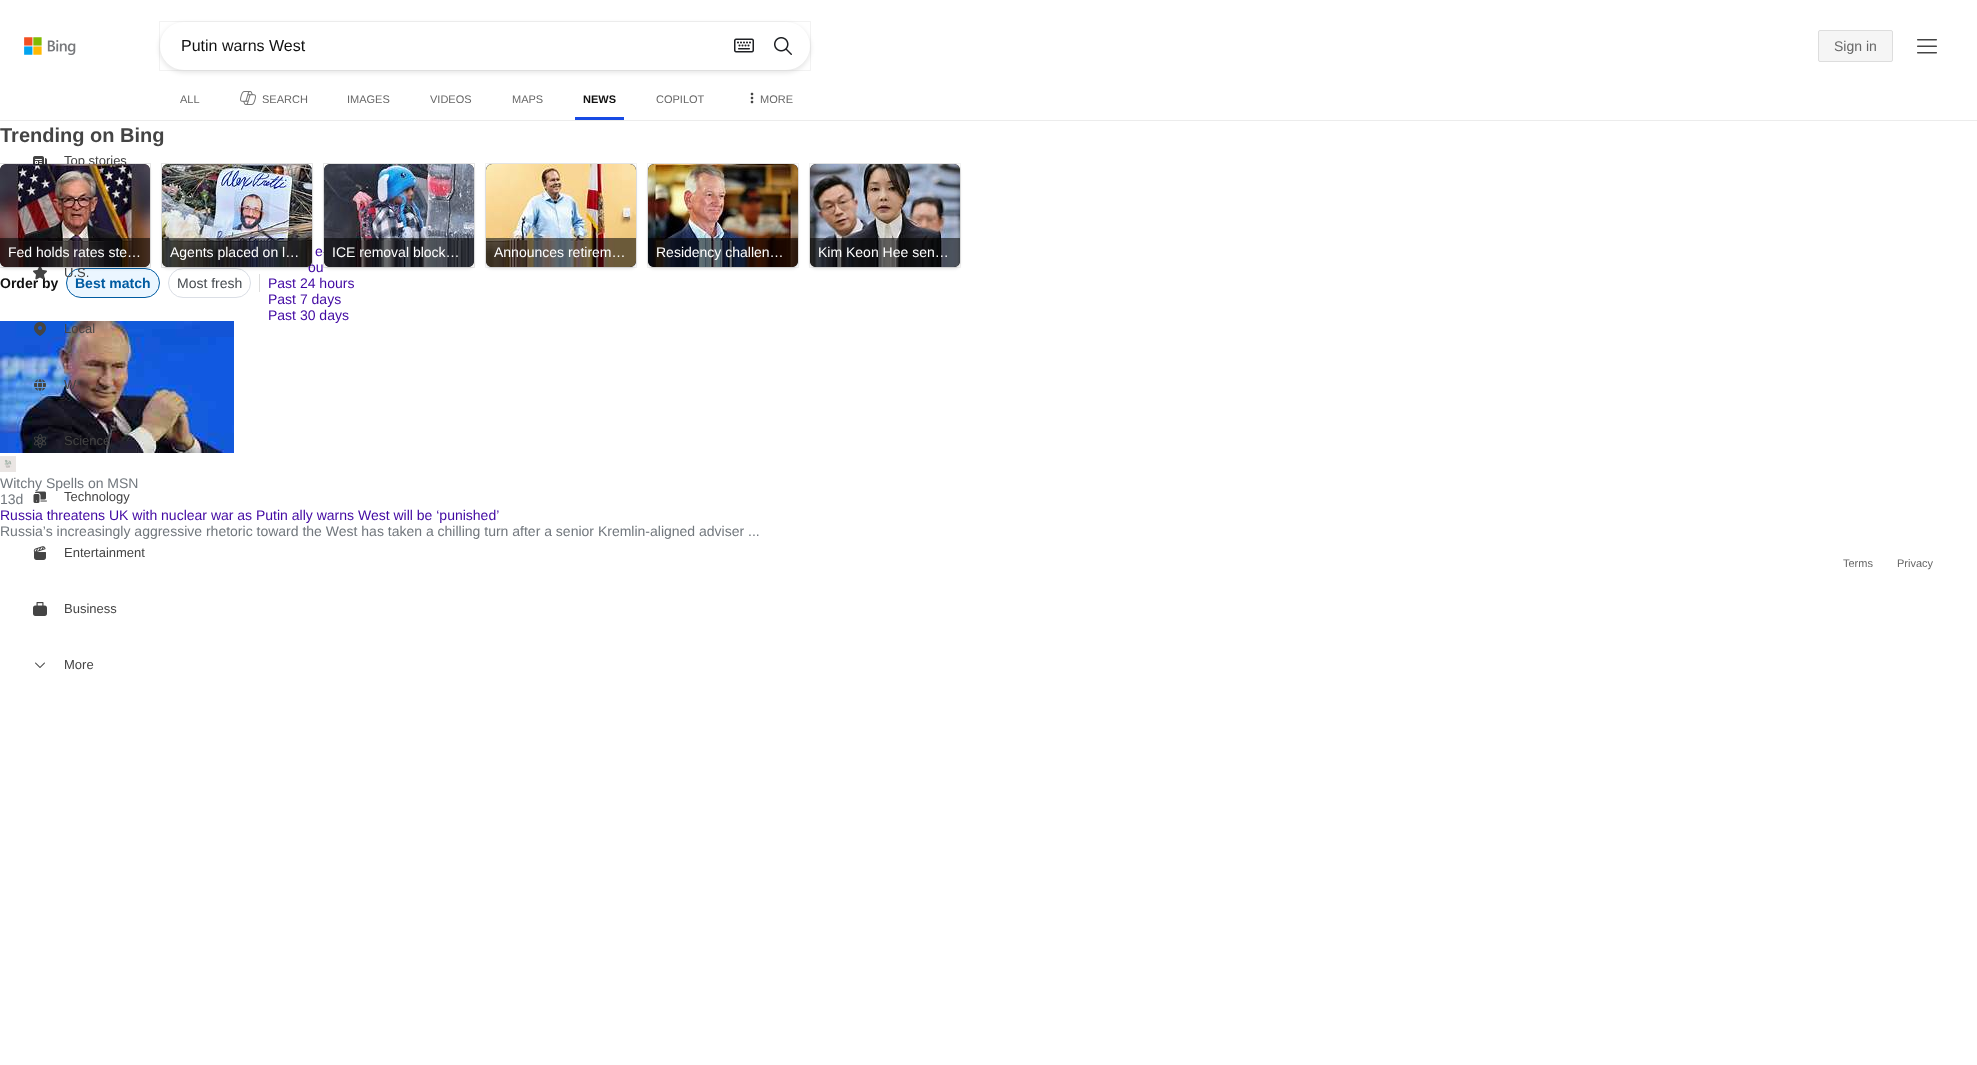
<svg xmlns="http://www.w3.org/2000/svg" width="1977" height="1065">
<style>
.a{font:16px Liberation Sans;fill:#111}
.b{font:14px Liberation Sans;fill:#666}
.c{font:11px Liberation Sans;fill:#666}
.d{font:bold 11px Liberation Sans;fill:#111}
.e{font:bold 20px Liberation Sans;fill:#444}
.f{font:14px Liberation Sans;fill:#fff}
.g{font:bold 14px Liberation Sans;fill:#111}
.h{font:bold 14px Liberation Sans;fill:#005ba1}
.i{font:14px Liberation Sans;fill:#474b50}
.j{font:14px Liberation Sans;fill:#4007a2}
.k{font:14px Liberation Sans;fill:#71777d}
.l{font:13px Liberation Sans;fill:#444}
</style>
<rect width="100%" height="100%" fill="#fff"/>
<path fill="#ececec" d="M0 120h1977v1H0z"/>
<image href="1.png" x="24" y="37" width="52" height="18"/>
<rect fill="#00000017" filter="blur(2px)" x="159" y="23" width="652" height="50" rx="25"/>
<path fill="none" stroke="#0000000d" d="M159.5 21.5h651v49H159.5z"/>
<rect fill="#fff" x="160" y="22" width="650" height="48" rx="24"/>
<image href="2.png" x="734" y="38" width="20" height="15"/>
<image href="3.png" x="774" y="37" width="18" height="18"/>
<rect fill="#f5f5f5" stroke="#ddd" x="1818.5" y="30.5" width="74" height="31" rx="1.5"/>
<image href="4.png" x="1917" y="39" width="20" height="15"/>
<image href="5.png" x="240" y="91" width="16" height="14"/>
<path fill="#174ae4" d="M575 117h49v3H575z"/>
<image href="6.png" x="750" y="92" width="4" height="12"/>
<image href="19.png" x="323" y="252" width="1" height="1"/>
<path fill="none" stroke="#0000000d" d="M323.5 163.5h151v104H323.5z"/>
<rect fill="#0000001a" filter="blur(1.5px)" x="324" y="166" width="150" height="103" rx="6"/>
<path fill="none" stroke="#0000000d" d="M323.5 163.5h151v104H323.5z"/>
<rect fill="#292827" x="324" y="164" width="150" height="103" rx="6"/>
<image href="11.png" x="324" y="164" width="150" height="78"/>
<image href="12.png" x="324" y="242" width="150" height="25"/>
<path fill="#0000008c" d="M324 238h150v23c0 3.5-2.5 6-6 6h-138c-3.5 0-6-2.5-6-6z"/>
<rect fill="none" stroke="#f2f2f2" x="485.5" y="163.5" width="151" height="104" rx="6.5"/>
<rect fill="#0000001a" filter="blur(1.5px)" x="486" y="166" width="150" height="103" rx="6"/>
<path fill="none" stroke="#0000000d" d="M485.5 163.5h151v104H485.5z"/>
<rect fill="#292827" x="486" y="164" width="150" height="103" rx="6"/>
<image href="13.png" x="486" y="164" width="150" height="78"/>
<image href="14.png" x="486" y="242" width="150" height="25"/>
<path fill="#0000008c" d="M486 238h150v23c0 3.5-2.5 6-6 6h-138c-3.5 0-6-2.5-6-6z"/>
<rect fill="none" stroke="#f2f2f2" x="647.5" y="163.5" width="151" height="104" rx="6.5"/>
<rect fill="#0000001a" filter="blur(1.5px)" x="648" y="166" width="150" height="103" rx="6"/>
<path fill="none" stroke="#0000000d" d="M647.5 163.5h151v104H647.5z"/>
<rect fill="#292827" x="648" y="164" width="150" height="103" rx="6"/>
<image href="15.png" x="648" y="164" width="150" height="78"/>
<image href="16.png" x="648" y="242" width="150" height="25"/>
<path fill="#0000008c" d="M648 238h150v23c0 3.5-2.5 6-6 6h-138c-3.5 0-6-2.5-6-6z"/>
<rect fill="none" stroke="#f2f2f2" x="809.5" y="163.5" width="151" height="104" rx="6.5"/>
<rect fill="#0000001a" filter="blur(1.5px)" x="810" y="166" width="150" height="103" rx="6"/>
<path fill="none" stroke="#0000000d" d="M809.5 163.5h151v104H809.5z"/>
<rect fill="#292827" x="810" y="164" width="150" height="103" rx="6"/>
<image href="17.png" x="810" y="164" width="150" height="78"/>
<image href="18.png" x="810" y="242" width="150" height="25"/>
<path fill="#0000008c" d="M810 238h150v23c0 3.5-2.5 6-6 6h-138c-3.5 0-6-2.5-6-6z"/>
<rect fill="#ebf6ff" stroke="#005ba1" x="66.5" y="268.5" width="93" height="29" rx="14.5"/>
<rect fill="none" stroke="#dadee5" x="168.5" y="268.5" width="82" height="29" rx="14.5"/>
<path fill="#ddd" d="M259 274h1v18H259z"/>
<image href="20.png" x="0" y="321" width="234" height="132"/>
<image href="21.png" x="0" y="456" width="16" height="16"/>
<image href="22.png" x="33" y="156" width="14" height="8"/>
<image href="24.png" x="34" y="322" width="12" height="14"/>
<image href="25.png" x="34" y="379" width="12" height="12"/>
<image href="26.png" x="34" y="434" width="13" height="14"/>
<image href="27.png" x="33" y="491" width="14" height="12"/>
<image href="28.png" x="33" y="546" width="13" height="14"/>
<image href="29.png" x="33" y="602" width="14" height="14"/>
<image href="30.png" x="35" y="662" width="10" height="6"/>
<text class="a" x="181" y="51">Putin warns West</text>
<text class="b" x="1834" y="51">Sign in</text>
<text class="c" x="180" y="103">ALL</text>
<text class="c" x="262" y="103">SEARCH</text>
<text class="c" x="347" y="103">IMAGES</text>
<text class="c" x="430" y="103">VIDEOS</text>
<text class="c" x="512" y="103">MAPS</text>
<text class="d" x="583" y="103">NEWS</text>
<text class="c" x="656" y="103">COPILOT</text>
<text class="c" x="760" y="103">MORE</text>
<text class="e" x="0" y="142">Trending on Bing</text>
<text class="f" x="332" y="257">ICE removal block…</text>
<text class="f" x="494" y="257">Announces retirem…</text>
<text class="f" x="656" y="257">Residency challen…</text>
<text class="f" x="818" y="257">Kim Keon Hee sen…</text>
<text class="g" x="0" y="288">Order by</text>
<text class="h" x="75" y="288">Best match</text>
<text class="i" x="177" y="288">Most fresh</text>
<text class="j" x="315" y="256">e</text>
<text class="j" x="308" y="272">ou</text>
<path fill="none" stroke="#0000000d" d="M161.5 163.5h151v104H161.5z"/>
<rect fill="#0000001a" filter="blur(1.5px)" x="162" y="166" width="150" height="103" rx="6"/>
<path fill="none" stroke="#0000000d" d="M161.5 163.5h151v104H161.5z"/>
<rect fill="#292827" x="162" y="164" width="150" height="103" rx="6"/>
<image href="9.png" x="162" y="164" width="150" height="78"/>
<image href="10.png" x="162" y="242" width="150" height="25"/>
<path fill="#0000008c" d="M162 238h150v23c0 3.5-2.5 6-6 6h-138c-3.5 0-6-2.5-6-6z"/>
<text class="f" x="170" y="257">Agents placed on l…</text>
<text class="j" x="268" y="288">Past 24 hours</text>
<text class="j" x="268" y="304">Past 7 days</text>
<text class="j" x="268" y="320">Past 30 days</text>
<text class="k" x="0" y="488">Witchy Spells on MSN</text>
<text class="k" x="0" y="504">13d</text>
<text class="j" x="0" y="520">Russia threatens UK with nuclear war as Putin ally warns West will be ‘punished’</text>
<text class="k" x="0" y="536">Russia’s increasingly aggressive rhetoric toward the West has taken a chilling turn after a senior Kremlin-aligned adviser ...</text>
<text class="l" x="64" y="165">Top stories</text>
<image href="23.png" x="33" y="267" width="14" height="13"/>
<text class="l" x="64" y="277">U.S.</text>
<path fill="none" stroke="#0000000d" d="M-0.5 163.5h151v104H-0.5z"/>
<rect fill="#0000001a" filter="blur(1.5px)" y="166" width="150" height="103" rx="6"/>
<path fill="none" stroke="#0000000d" d="M-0.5 163.5h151v104H-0.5z"/>
<rect fill="#292827" y="164" width="150" height="103" rx="6"/>
<image href="7.png" x="0" y="164" width="150" height="78"/>
<image href="8.png" x="0" y="242" width="150" height="25"/>
<path fill="#0000008c" d="M0 238h150v23c0 3.5-2.5 6-6 6h-138c-3.5 0-6-2.5-6-6z"/>
<text class="f" x="8" y="257">Fed holds rates ste…</text>
<text class="l" x="64" y="333">Local</text>
<text class="l" x="64" y="389">W</text>
<text class="l" x="64" y="445">Science</text>
<text class="l" x="64" y="501">Technology</text>
<text class="l" x="64" y="557">Entertainment</text>
<text class="l" x="64" y="613">Business</text>
<text class="l" x="64" y="669">More</text>
<text class="c" x="1843" y="567">Terms</text>
<text class="c" x="1897" y="567">Privacy</text>
</svg>
